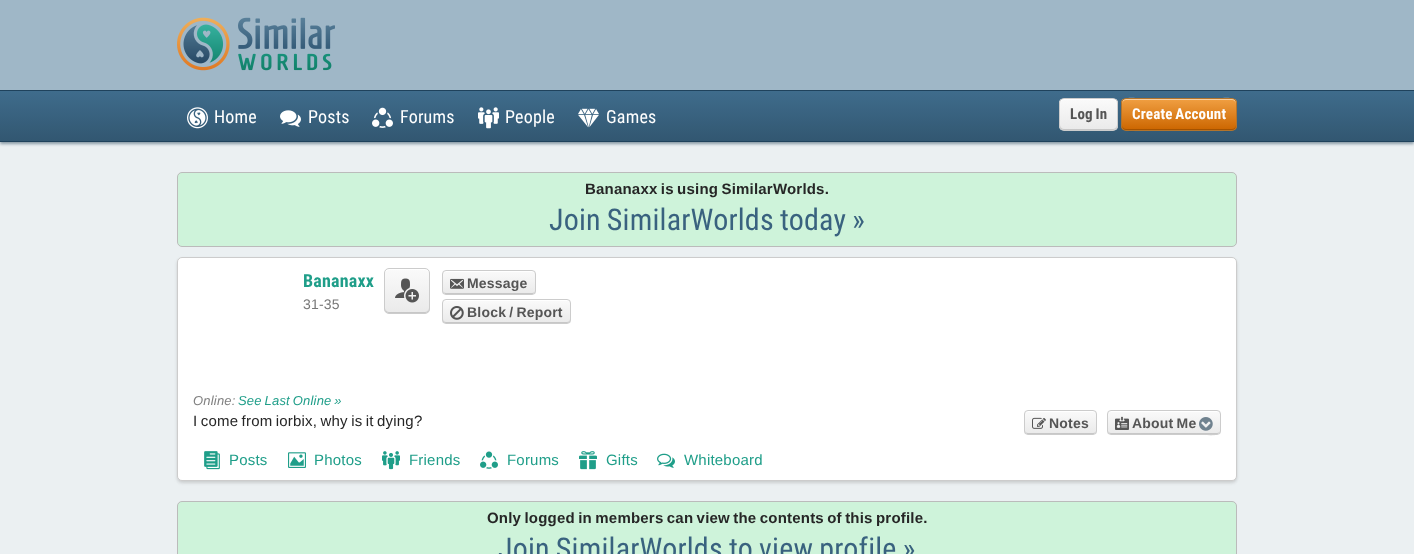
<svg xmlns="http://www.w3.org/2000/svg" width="1414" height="554">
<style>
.a{font:18px Roboto Condensed;letter-spacing:0.2px;fill:#fff}
.b{font:bold 15px Roboto Condensed;letter-spacing:0.2px;fill:#555}
.c{font:bold 15px Roboto Condensed;letter-spacing:0.2px;fill:#fff}
.d{font:bold 15px Liberation Sans;letter-spacing:0.2px;fill:#262626}
.e{font:30px Roboto Condensed;letter-spacing:0.2px;fill:#39627f}
.f{font:bold 18px Roboto Condensed;letter-spacing:0.2px;fill:#1f9e89}
.g{font:14px Liberation Sans;letter-spacing:0.2px;fill:#777}
.h{font:bold 14px Liberation Sans;letter-spacing:0.2px;fill:#555}
.i{font:italic 13px Liberation Sans;letter-spacing:0.2px;fill:#808080}
.j{font:italic 13px Liberation Sans;letter-spacing:0.2px;fill:#1f9e89}
.k{font:15px Liberation Sans;letter-spacing:0.2px;fill:#262626}
.l{font:15px Liberation Sans;letter-spacing:0.2px;fill:#1f9e89}
</style>
<defs>
<linearGradient id="g1" gradientUnits="userSpaceOnUse" x1="707" y1="91" x2="707" y2="141"><stop offset="0" stop-color="#3f6c8c"/><stop offset="1" stop-color="#325771"/></linearGradient>
<clipPath id="clip1"><rect x="1059" y="98" width="59" height="33" rx="5"/></clipPath>
<linearGradient id="g2" gradientUnits="userSpaceOnUse" x1="1089" y1="99" x2="1089" y2="130"><stop offset="0" stop-color="#fafafa"/><stop offset="1" stop-color="#eaeaea"/></linearGradient>
<clipPath id="clip2"><rect x="1121" y="98" width="116" height="33" rx="5"/></clipPath>
<linearGradient id="g3" gradientUnits="userSpaceOnUse" x1="1179" y1="99" x2="1179" y2="130"><stop offset="0" stop-color="#f09f42"/><stop offset="1" stop-color="#c60"/></linearGradient>
<clipPath id="clip3"><rect x="384" y="268" width="46" height="46" rx="5"/></clipPath>
<linearGradient id="g4" gradientUnits="userSpaceOnUse" x1="407" y1="269" x2="407" y2="313"><stop offset="0" stop-color="#fafafa"/><stop offset="1" stop-color="#eaeaea"/></linearGradient>
<clipPath id="clip4"><rect x="442" y="270" width="94" height="25" rx="4"/></clipPath>
<linearGradient id="g5" gradientUnits="userSpaceOnUse" x1="489" y1="271" x2="489" y2="294"><stop offset="0" stop-color="#fafafa"/><stop offset="1" stop-color="#eaeaea"/></linearGradient>
<clipPath id="clip5"><rect x="442" y="299" width="129" height="25" rx="4"/></clipPath>
<linearGradient id="g6" gradientUnits="userSpaceOnUse" x1="507" y1="300" x2="507" y2="323"><stop offset="0" stop-color="#fafafa"/><stop offset="1" stop-color="#eaeaea"/></linearGradient>
<clipPath id="clip6"><rect x="1024" y="410" width="73" height="25" rx="4"/></clipPath>
<linearGradient id="g7" gradientUnits="userSpaceOnUse" x1="1061" y1="411" x2="1061" y2="434"><stop offset="0" stop-color="#fafafa"/><stop offset="1" stop-color="#eaeaea"/></linearGradient>
<clipPath id="clip7"><rect x="1107" y="410" width="114" height="25" rx="4"/></clipPath>
<linearGradient id="g8" gradientUnits="userSpaceOnUse" x1="1164" y1="411" x2="1164" y2="434"><stop offset="0" stop-color="#fafafa"/><stop offset="1" stop-color="#eaeaea"/></linearGradient>
</defs>
<rect width="100%" height="100%" fill="#ebf0f2"/>
<path fill="#26445980" filter="blur(1.5px)" d="M0 92h1414v52H0z"/>
<path fill="#9fb7c7" d="M0 0h1414v90H0z"/>
<image href="1.png" x="177" y="17" width="158" height="54"/>
<path fill="url(#g1)" d="M0 91h1414v50H0z"/>
<path fill="#1f425c" d="M0 90h1414v1H0z"/>
<path fill="#1f425c" d="M0 141h1414v1H0z"/>
<image href="2.png" x="187" y="107" width="21" height="22"/>
<image href="3.png" x="280" y="110" width="21" height="17"/>
<image href="4.png" x="372" y="107" width="21" height="21"/>
<image href="5.png" x="478" y="107" width="21" height="22"/>
<image href="6.png" x="578" y="108" width="21" height="20"/>
<g clip-path="url(#clip1)">
<path fill="url(#g2)" d="M1059 99h59v31H1059z"/>
</g>
<path fill="#c7c7c7" d="M1060 125c0 7 7 5 12 5h33c5 0 12 2 12-5c0 2-2 4-4 4h-49c-2 0-4-2-4-4z"/>
<path fill="#fff" d="M1064 100h49c2 0 4 2 4 4c0-7-7-5-12-5h-33c-5 0-12-2-12 5c0-2 2-4 4-4z"/>
<rect fill="none" stroke="#ccc" x="1059.5" y="98.5" width="58" height="32" rx="4.5"/>
<g clip-path="url(#clip2)">
<path fill="url(#g3)" d="M1121 99h116v31H1121z"/>
</g>
<path fill="#00000033" d="M1122 125c0 10 18 5 22 5h70c4 0 22 5 22-5c0 2-2 4-4 4h-106c-2 0-4-2-4-4z"/>
<path fill="#ffffff80" d="M1126 100h106c2 0 4 2 4 4c0-10-18-5-22-5h-70c-4 0-22-5-22 5c0-2 2-4 4-4z"/>
<rect fill="none" stroke="#b2742c" x="1121.5" y="98.5" width="115" height="32" rx="4.5"/>
<rect fill="#cef3da" stroke="#bbb" x="177.5" y="172.5" width="1059" height="74" rx="4.5"/>
<rect fill="#8080804d" filter="blur(1.5px)" x="177" y="259" width="1060" height="224" rx="5"/>
<rect fill="#fff" stroke="#ccc" x="177.5" y="257.5" width="1059" height="223" rx="4.5"/>
<g clip-path="url(#clip3)">
<path fill="url(#g4)" d="M384 269h46v44H384z"/>
</g>
<path fill="#c7c7c7" d="M385 308c0 6 5 5 10 5h24c5 0 10 1 10-5c0 2-2 4-4 4h-36c-2 0-4-2-4-4z"/>
<path fill="#fff" d="M389 270h36c2 0 4 2 4 4c0-6-5-5-10-5h-24c-5 0-10-1-10 5c0-2 2-4 4-4z"/>
<rect fill="none" stroke="#ccc" x="384.5" y="268.5" width="45" height="45" rx="4.5"/>
<image href="7.png" x="395" y="278" width="24" height="25"/>
<g clip-path="url(#clip4)">
<path fill="url(#g5)" d="M442 271h94v23H442z"/>
</g>
<path fill="#00000026" d="M443 290c0 8 14 4 17 4h58c3 0 17 4 17-4c0 2-1 3-3 3h-86c-2 0-3-1-3-3z"/>
<path fill="#fff" d="M446 272h86c2 0 3 1 3 3c0-8-14-4-17-4h-58c-3 0-17-4-17 4c0-2 1-3 3-3z"/>
<rect fill="none" stroke="#ccc" x="442.5" y="270.5" width="93" height="24" rx="3.5"/>
<image href="8.png" x="450" y="278" width="14" height="11"/>
<g clip-path="url(#clip5)">
<path fill="url(#g6)" d="M442 300h129v23H442z"/>
</g>
<path fill="#c7c7c7" d="M443 319v1c0 2 1 3 3 3h121c2 0 3-1 3-3v-1c0 2-1 3-3 3h-121c-2 0-3-1-3-3z"/>
<path fill="#fff" d="M446 301h121c2 0 3 1 3 3v-1c0-2-1-3-3-3h-121c-2 0-3 1-3 3v1c0-2 1-3 3-3z"/>
<rect fill="none" stroke="#ccc" x="442.5" y="299.5" width="128" height="24" rx="3.5"/>
<image href="9.png" x="450" y="306" width="14" height="14"/>
<g clip-path="url(#clip6)">
<path fill="url(#g7)" d="M1024 411h73v23H1024z"/>
</g>
<path fill="#00000026" d="M1025 430c0 7 10 4 14 4h43c4 0 14 3 14-4c0 2-1 3-3 3h-65c-2 0-3-1-3-3z"/>
<path fill="#fff" d="M1028 412h65c2 0 3 1 3 3c0-7-10-4-14-4h-43c-4 0-14-3-14 4c0-2 1-3 3-3z"/>
<rect fill="none" stroke="#ccc" x="1024.5" y="410.5" width="72" height="24" rx="3.5"/>
<image href="10.png" x="1032" y="417" width="14" height="12"/>
<g clip-path="url(#clip7)">
<path fill="url(#g8)" d="M1107 411h114v23H1107z"/>
</g>
<path fill="#00000026" d="M1108 430c0 2 1 4 3 4h88c2 0 21 5 21-4c0 2-1 3-3 3h-106c-2 0-3-1-3-3z"/>
<path fill="#fff" d="M1111 412h106c2 0 3 1 3 3c0-2-1-4-3-4h-88c-2 0-21-5-21 4c0-2 1-3 3-3z"/>
<rect fill="none" stroke="#ccc" x="1107.5" y="410.5" width="113" height="24" rx="3.5"/>
<image href="11.png" x="1115" y="416" width="14" height="14"/>
<image href="12.png" x="1199" y="417" width="14" height="14"/>
<image href="13.png" x="204" y="451" width="16" height="19"/>
<image href="14.png" x="288" y="452" width="18" height="16"/>
<image href="15.png" x="382" y="451" width="18" height="19"/>
<image href="16.png" x="480" y="451" width="18" height="18"/>
<image href="17.png" x="579" y="451" width="18" height="19"/>
<image href="18.png" x="657" y="453" width="18" height="15"/>
<rect fill="#cef3da" stroke="#bbb" x="177.5" y="501.5" width="1059" height="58" rx="4.5"/>
<text class="a" x="214" y="123">Home</text>
<text class="a" x="308" y="123">Posts</text>
<text class="a" x="400" y="123">Forums</text>
<text class="a" x="505" y="123">People</text>
<text class="a" x="606" y="123">Games</text>
<text class="b" x="1070" y="119" word-spacing="-1">Log In</text>
<text class="c" x="1132" y="119" word-spacing="-1">Create Account</text>
<text class="d" x="585" y="194" word-spacing="-1">Bananaxx is using SimilarWorlds.</text>
<text class="e" x="549" y="230" word-spacing="-1">Join SimilarWorlds today »</text>
<text class="f" x="303" y="287">Bananaxx</text>
<text class="g" x="303" y="309">31-35</text>
<text class="h" x="467" y="288">Message</text>
<text class="h" x="467" y="317" word-spacing="-1">Block / Report</text>
<text class="i" x="193" y="405">Online:</text>
<text class="j" x="238" y="405" word-spacing="-1">See Last Online »</text>
<text class="k" x="193" y="426" word-spacing="-1">I come from iorbix, why is it dying?</text>
<text class="h" x="1049" y="428">Notes</text>
<text class="h" x="1132" y="428" word-spacing="-1">About Me</text>
<text class="l" x="229" y="465">Posts</text>
<text class="l" x="314" y="465">Photos</text>
<text class="l" x="409" y="465">Friends</text>
<text class="l" x="507" y="465">Forums</text>
<text class="l" x="606" y="465">Gifts</text>
<text class="l" x="684" y="465">Whiteboard</text>
<text class="d" x="487" y="523" word-spacing="-1">Only logged in members can view the contents of this profile.</text>
<text class="e" x="498" y="559" word-spacing="-1">Join SimilarWorlds to view profile »</text>
</svg>
